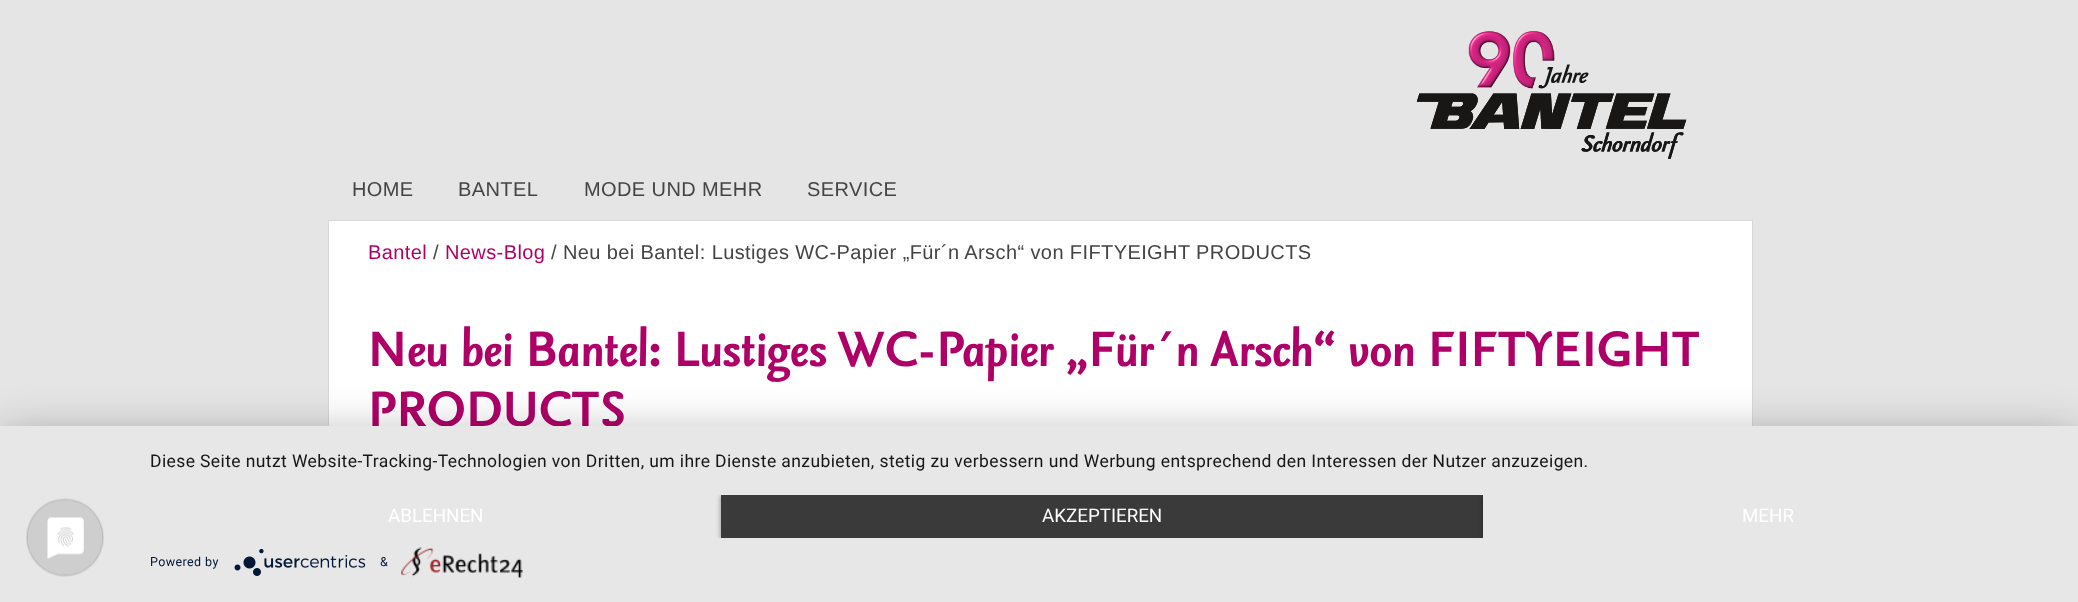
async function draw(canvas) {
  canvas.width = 2078
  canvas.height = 602
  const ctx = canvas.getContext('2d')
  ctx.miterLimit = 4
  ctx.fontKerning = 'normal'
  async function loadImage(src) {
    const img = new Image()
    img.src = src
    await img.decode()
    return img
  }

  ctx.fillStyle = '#e5e5e5'
  ctx.fillRect(0, 0, 2078, 602)
  ctx.drawImage(await loadImage('image0.png'), 1416, 31, 271, 128)
  ctx.letterSpacing = '0.4px'
  ctx.font = '20px Liberation Sans'
  ctx.fillStyle = '#444'
  ctx.fillText('HOME', 352, 196)
  ctx.fillText('BANTEL', 458, 196)
  ctx.fillText('MODE UND MEHR', 584, 196)
  ctx.fillText('SERVICE', 807, 196)
  ctx.fillStyle = '#fff'
  ctx.fillRect(329, 221, 1423, 205)
  ctx.strokeStyle = '#d8d8d8'
  ctx.strokeRect(328.5, 220.5, 1424, 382)
  ctx.fillStyle = '#af0068'
  ctx.fillText('Bantel', 368, 259)
  ctx.fillStyle = '#444'
  ctx.fillText('/', 433, 259)
  ctx.fillStyle = '#af0068'
  ctx.fillText('News-Blog', 445, 259)
  ctx.fillStyle = '#444'
  ctx.fillText('/ Neu bei Bantel: Lustiges WC-Papier „Für´n Arsch“ von FIFTYEIGHT PRODUCTS', 551, 259)
  ctx.font = 'bold 60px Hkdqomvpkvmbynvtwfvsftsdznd'
  ctx.fillStyle = '#af0068'
  ctx.fillText('Neu bei Bantel: Lustiges WC-Papier „Für´n Arsch“ von FIFTYEIGHT', 368, 366)
  ctx.fillText('PRODUCTS', 368, 426)
  ctx.fillStyle = '#0000004d'
  ctx.filter = 'blur(22.5px)'
  ctx.beginPath()
  ctx.rect(0, 434, 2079, 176)
  ctx.fill()
  ctx.filter = 'none'
  ctx.fillStyle = '#e7e7e7'
  ctx.fillRect(0, 426, 2078, 176)
  ctx.drawImage(await loadImage('image1.png'), 26, 498, 78, 79)
  ctx.font = '17.5px Roboto'
  ctx.fillStyle = '#161616'
  ctx.fillText('Diese Seite nutzt Website-Tracking-Technologien von Dritten, um ihre Dienste anzubieten, stetig zu verbessern und Werbung entsprechend den Interessen der Nutzer anzuzeigen.', 150, 467)
  ctx.letterSpacing = '0px'
  ctx.font = '18.75px Roboto'
  ctx.fillStyle = '#fff'
  ctx.fillText('ABLEHNEN', 388, 522)
  ctx.save()
  ctx.beginPath()
  ctx.rect(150, 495, 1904, 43)
  ctx.clip()
  ctx.fillStyle = '#00000066'
  ctx.filter = 'blur(2.5px)'
  ctx.beginPath()
  ctx.rect(721, 496, 762, 43)
  ctx.fill()
  ctx.filter = 'none'
  ctx.restore()
  ctx.fillStyle = '#3a3a3a'
  ctx.fillRect(721, 495, 762, 43)
  ctx.fillStyle = '#fff'
  ctx.fillText('AKZEPTIEREN', 1042, 522)
  ctx.save()
  ctx.beginPath()
  ctx.rect(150, 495, 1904, 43)
  ctx.clip()
  ctx.fillStyle = '#00000066'
  ctx.filter = 'blur(2.5px)'
  ctx.beginPath()
  ctx.rect(1483, 496, 571, 43)
  ctx.fill()
  ctx.filter = 'none'
  ctx.restore()
  ctx.fillStyle = '#e7e7e7'
  ctx.fillRect(1483, 495, 571, 43)
  ctx.fillStyle = '#fff'
  ctx.fillText('MEHR', 1742, 522)
  ctx.letterSpacing = '0.4px'
  ctx.font = '12.5px Roboto'
  ctx.fillStyle = '#021836'
  ctx.fillText('Powered by', 150, 566)
  ctx.drawImage(await loadImage('image2.png'), 234, 548, 132, 28)
  ctx.fillText('&', 380, 566)
  ctx.drawImage(await loadImage('image3.png'), 401, 547, 122, 31)
}

draw(document.querySelector('canvas'))
